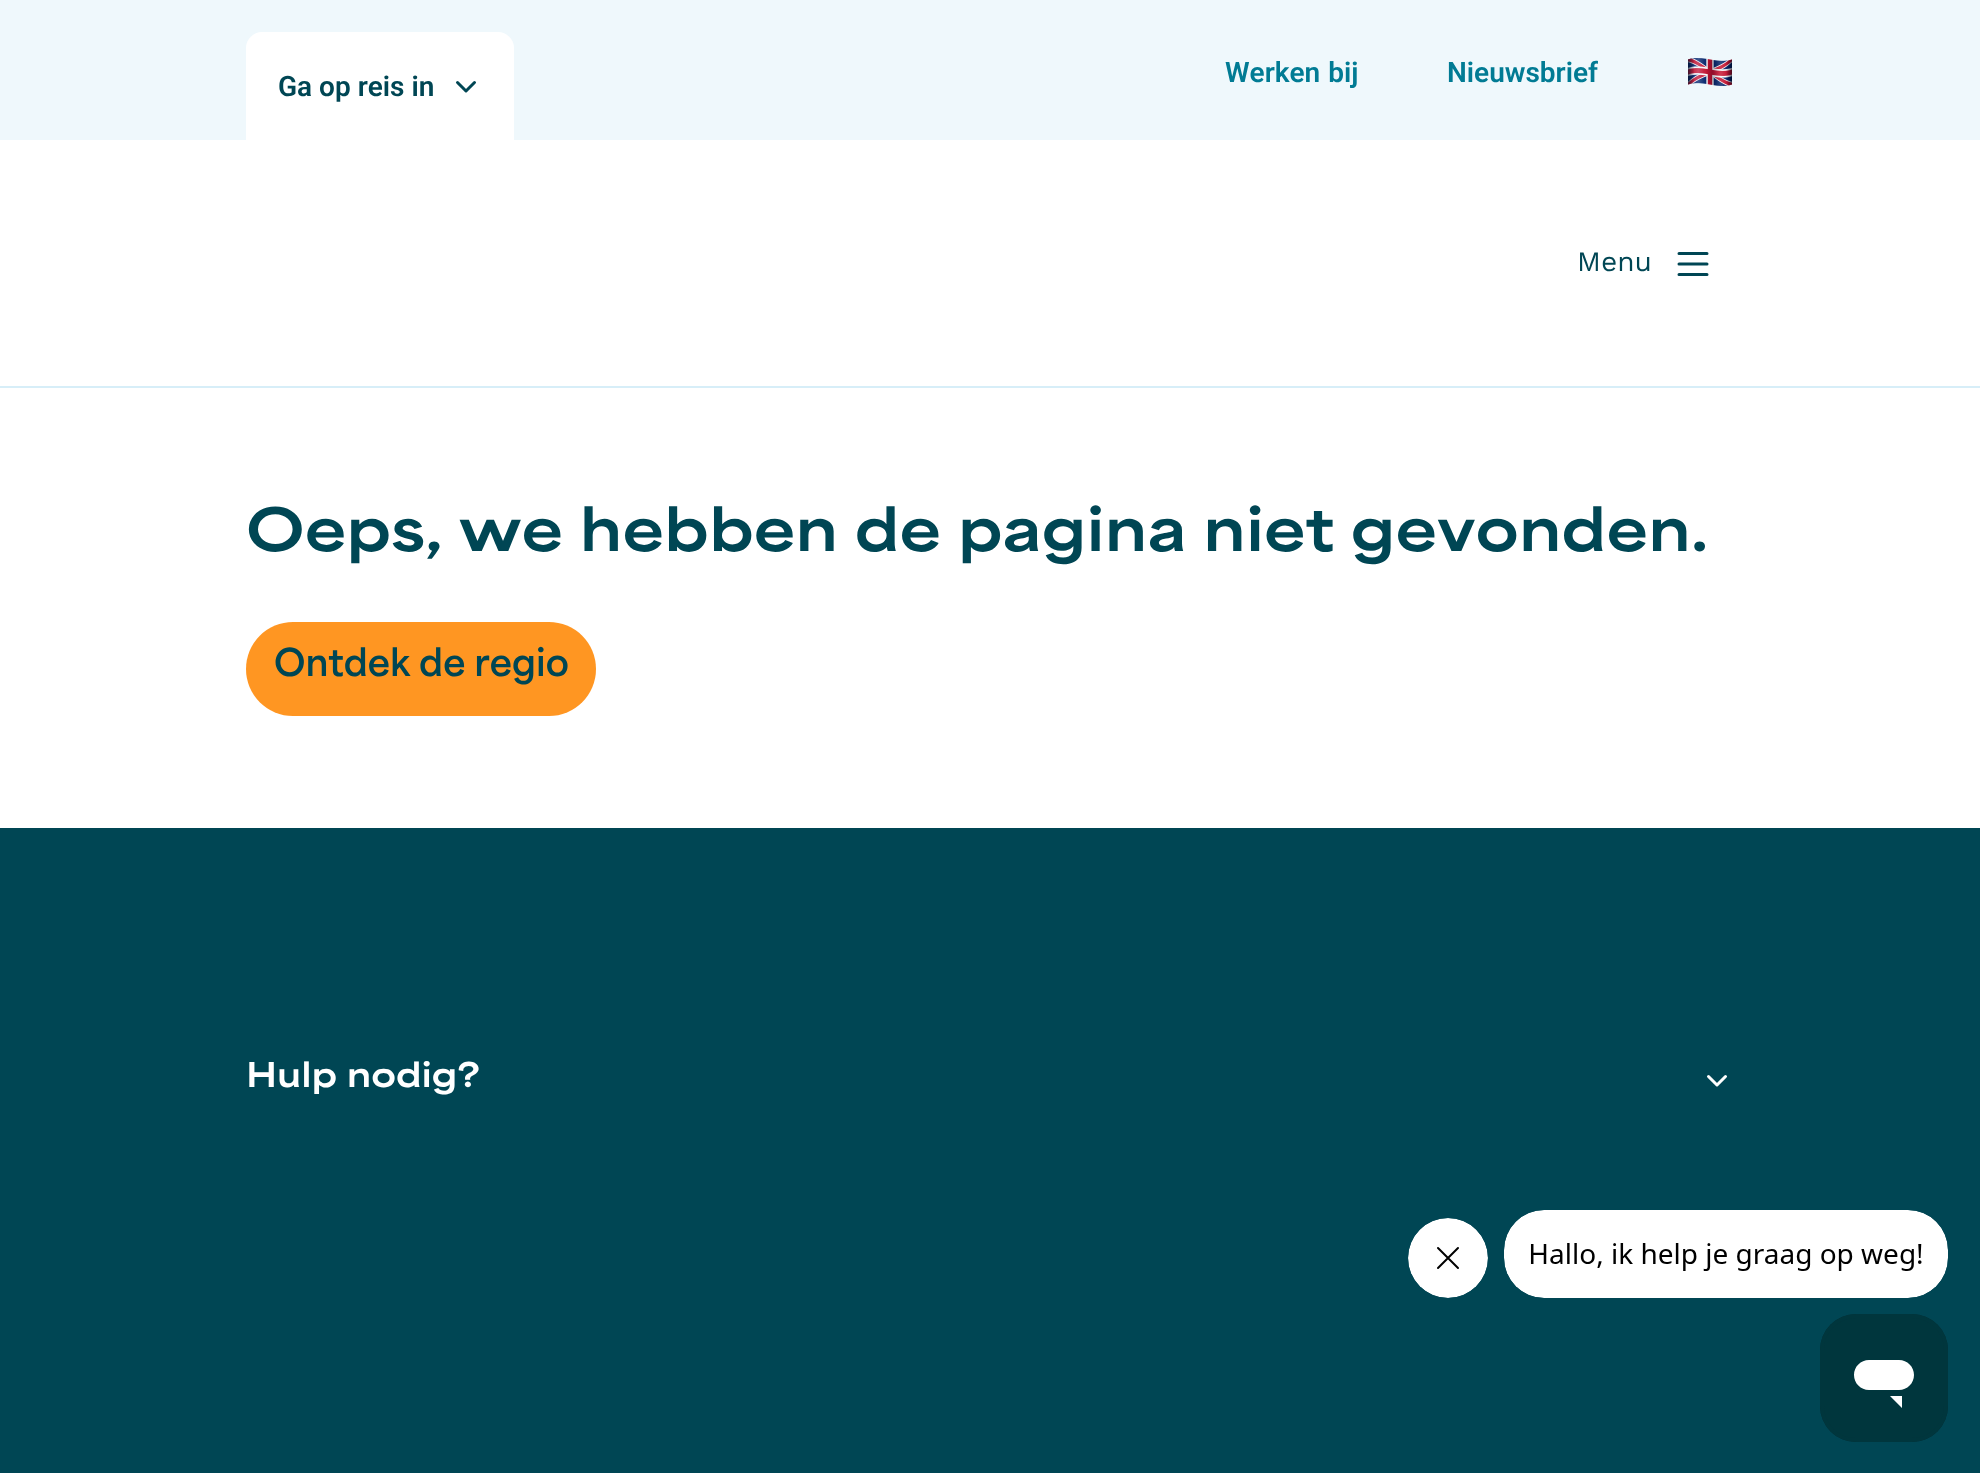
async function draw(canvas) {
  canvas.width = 1980
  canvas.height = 1473
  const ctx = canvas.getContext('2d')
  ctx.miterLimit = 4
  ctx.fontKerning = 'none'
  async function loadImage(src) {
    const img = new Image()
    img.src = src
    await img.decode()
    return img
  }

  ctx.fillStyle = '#fff'
  ctx.fillRect(0, 0, 1980, 1473)
  ctx.fillStyle = '#eff8fc'
  ctx.fillRect(0, 0, 1980, 140)
  ctx.fillStyle = '#fff'
  ctx.beginPath()
  ctx.roundRect(246, 32, 268, 108, [16, 16, 0, 0])
  ctx.fill()
  ctx.font = '600 28px Roboto'
  ctx.fillStyle = '#004654'
  ctx.fillText('Ga op reis in', 278, 96)
  ctx.beginPath()
  ctx.moveTo(474.5, 82.5)
  ctx.lineTo(466, 91)
  ctx.lineTo(457.5, 82.5)
  ctx.strokeStyle = '#004654'
  ctx.lineWidth = 3
  ctx.lineCap = 'round'
  ctx.lineJoin = 'round'
  ctx.stroke()
  ctx.wordSpacing = '1px'
  ctx.fillStyle = '#017b94'
  ctx.fillText('Werken bij', 1225, 82)
  ctx.wordSpacing = '0px'
  ctx.fillText('Nieuwsbrief', 1447, 82)
  ctx.drawImage(await loadImage('image0.png'), 1688, 58, 44, 28)
  ctx.fillStyle = '#d7eef8'
  ctx.fillRect(0, 386, 1980, 2)
  ctx.font = '28px Work Sans'
  ctx.fillStyle = '#004654'
  ctx.fillText('Menu', 1577, 271)
  ctx.beginPath()
  ctx.moveTo(1679, 253.5)
  ctx.lineTo(1707, 253.5)
  ctx.moveTo(1679, 264)
  ctx.lineTo(1707, 264)
  ctx.moveTo(1679, 274.5)
  ctx.lineTo(1707, 274.5)
  ctx.stroke()
  ctx.font = '800 56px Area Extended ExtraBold'
  ctx.fillText('Oeps, we hebben de pagina niet gevonden.', 246, 551)
  ctx.fillStyle = '#ff9622'
  ctx.beginPath()
  ctx.roundRect(246, 622, 350, 94, 47)
  ctx.fill()
  ctx.font = 'bold 36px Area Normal'
  ctx.fillStyle = '#004654'
  ctx.fillText('Ontdek de regio', 274, 676)
  ctx.fillRect(0, 828, 1980, 645)
  ctx.font = '800 32px Area Extended ExtraBold'
  ctx.fillStyle = '#fff'
  ctx.fillText('Hulp nodig?', 246, 1087)
  ctx.beginPath()
  ctx.moveTo(1725.5, 1076.5)
  ctx.lineTo(1717, 1085)
  ctx.lineTo(1708.5, 1076.5)
  ctx.strokeStyle = '#fff'
  ctx.stroke()
  ctx.drawImage(await loadImage('image1.png'), 1408, 1218, 80, 80)
  ctx.drawImage(await loadImage('image2.png'), 1504, 1210, 444, 88)
  ctx.drawImage(await loadImage('image3.png'), 1820, 1314, 128, 128)
}

draw(document.querySelector('canvas'))
